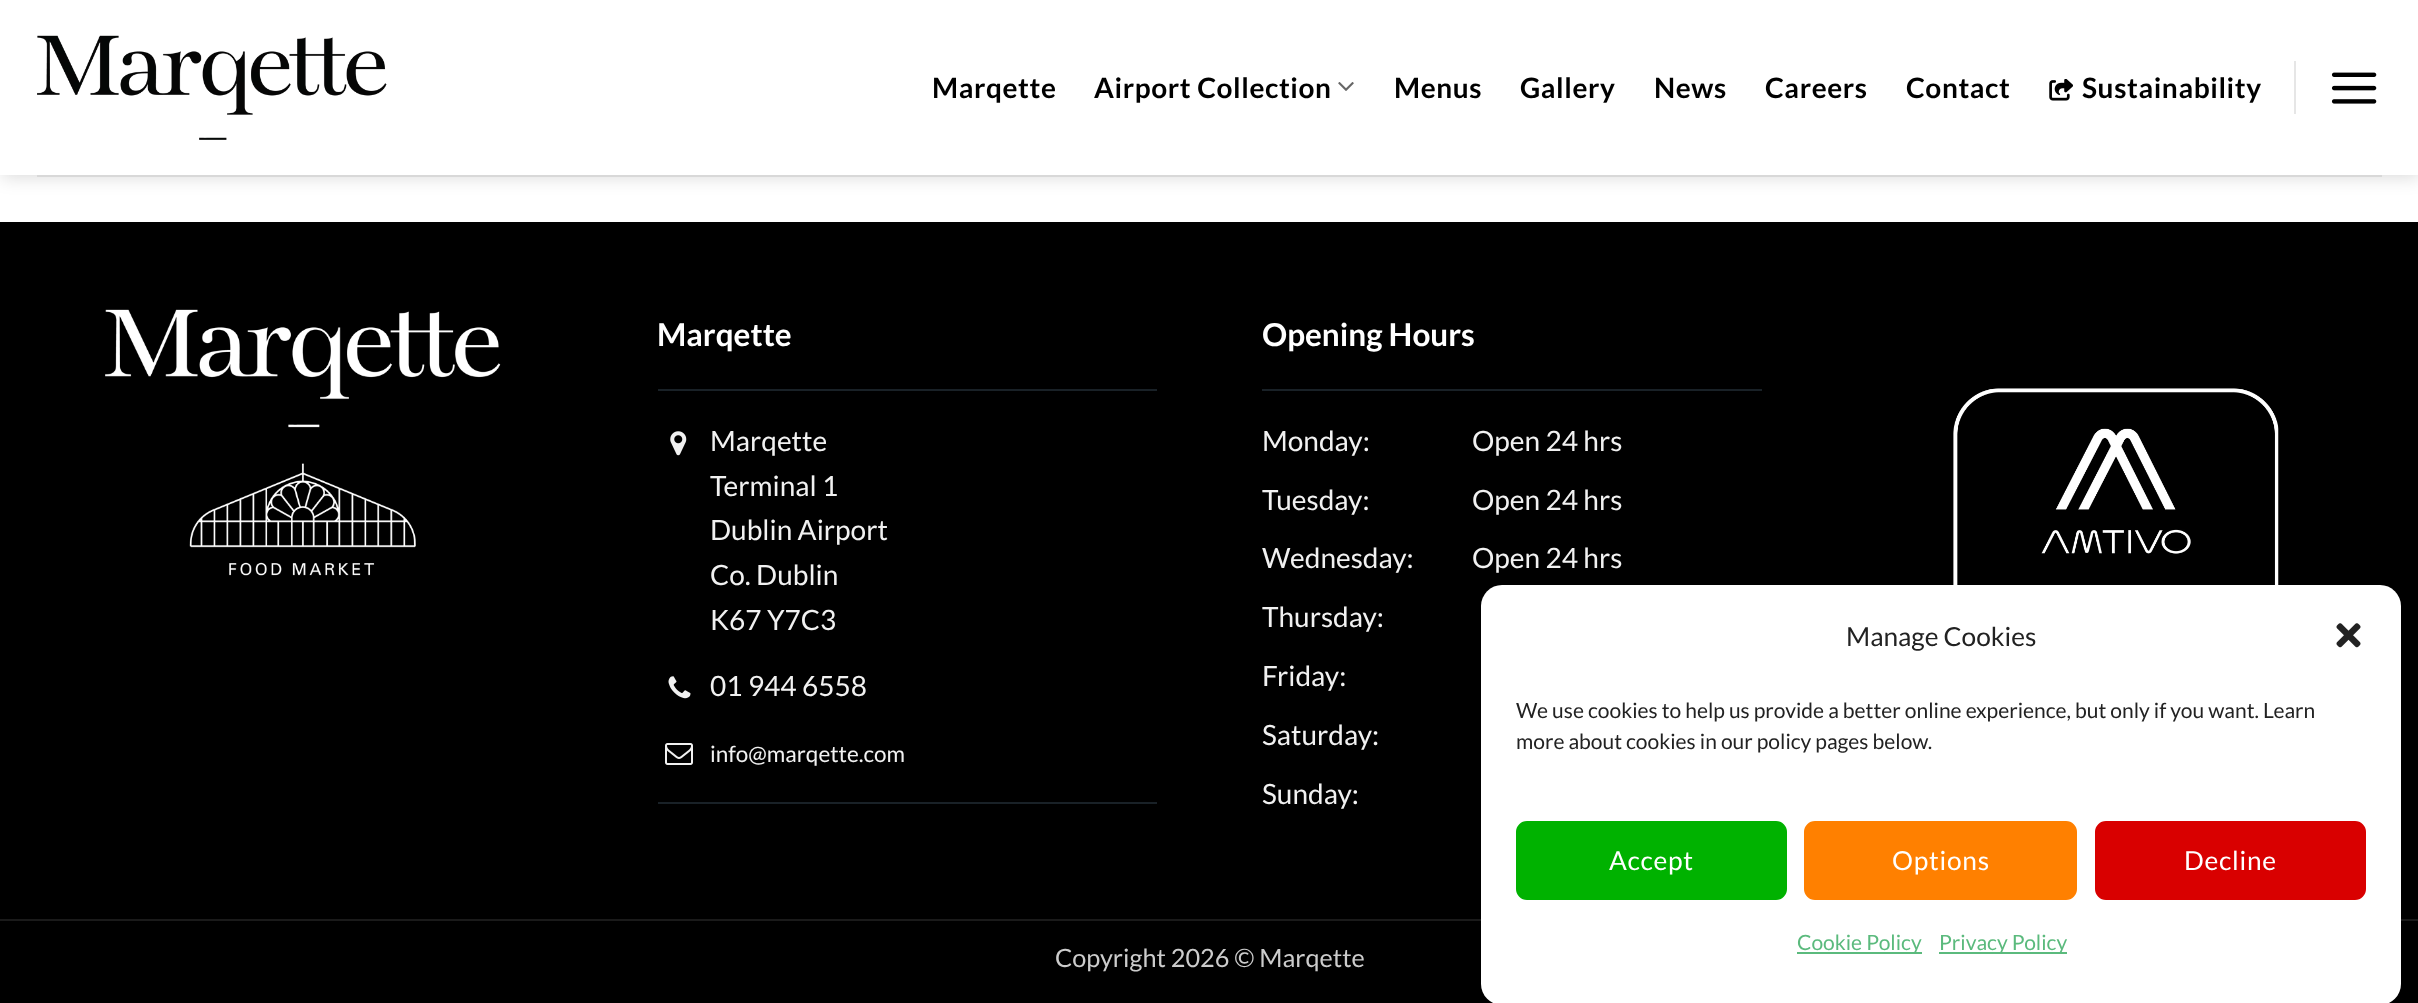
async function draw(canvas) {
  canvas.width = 2418
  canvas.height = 1003
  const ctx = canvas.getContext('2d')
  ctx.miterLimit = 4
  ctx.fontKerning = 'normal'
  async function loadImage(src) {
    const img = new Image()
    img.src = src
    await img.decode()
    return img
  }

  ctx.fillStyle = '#fff'
  ctx.fillRect(0, 0, 2418, 1003)
  ctx.fillStyle = '#00000026'
  ctx.filter = 'blur(9px)'
  ctx.beginPath()
  ctx.rect(2, 2, 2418, 175)
  ctx.fill()
  ctx.filter = 'none'
  ctx.fillStyle = '#fff'
  ctx.fillRect(0, 0, 2418, 175)
  ctx.drawImage(await loadImage('image0.png'), 37, 35, 350, 105)
  ctx.letterSpacing = '0.6px'
  ctx.font = 'bold 28px Lato'
  ctx.fillStyle = '#000'
  ctx.fillText('Marqette', 932, 98)
  ctx.fillText('Airport Collection', 1094, 98)
  ctx.drawImage(await loadImage('image1.png'), 1338, 82, 16, 9)
  ctx.fillText('Menus', 1394, 98)
  ctx.fillText('Gallery', 1520, 98)
  ctx.fillText('News', 1654, 98)
  ctx.fillText('Careers', 1765, 98)
  ctx.fillText('Contact', 1906, 98)
  ctx.drawImage(await loadImage('image2.png'), 2049, 79, 24, 22)
  ctx.fillText('Sustainability', 2082, 98)
  ctx.fillStyle = '#e6e6e6'
  ctx.fillRect(2294, 61, 2, 53)
  ctx.drawImage(await loadImage('image3.png'), 2331, 72, 46, 32)
  ctx.fillStyle = '#d8d8d8'
  ctx.fillRect(37, 175, 2345, 2)
  ctx.fillStyle = '#000'
  ctx.fillRect(0, 222, 2418, 697)
  ctx.drawImage(await loadImage('image4.png'), 105, 309, 396, 267)
  ctx.letterSpacing = '0px'
  ctx.font = 'bold 31.5px Lato'
  ctx.fillStyle = '#fff'
  ctx.fillText('Marqette', 657, 346)
  ctx.fillStyle = '#192127'
  ctx.fillRect(658, 389, 499, 2)
  ctx.drawImage(await loadImage('image5.png'), 670, 431, 17, 25)
  ctx.font = '28px Lato'
  ctx.fillStyle = '#f1f1f1'
  ctx.fillText('Marqette', 710, 451)
  ctx.fillText('Terminal 1', 710, 496)
  ctx.fillText('Dublin Airport', 710, 540)
  ctx.fillText('Co. Dublin', 710, 585)
  ctx.fillText('K67 Y7C3', 710, 630)
  ctx.drawImage(await loadImage('image6.png'), 668, 676, 23, 23)
  ctx.fillText('01 944 6558', 710, 696)
  ctx.drawImage(await loadImage('image7.png'), 665, 743, 28, 22)
  ctx.font = '22.5px Lato'
  ctx.fillText('info@marqette.com', 710, 762)
  ctx.fillStyle = '#192127'
  ctx.fillRect(658, 802, 499, 2)
  ctx.font = 'bold 31.5px Lato'
  ctx.fillStyle = '#fff'
  ctx.fillText('Opening Hours', 1262, 346)
  ctx.fillStyle = '#192127'
  ctx.fillRect(1262, 389, 500, 2)
  ctx.font = '28px Lato'
  ctx.fillStyle = '#f1f1f1'
  ctx.fillText('Monday:', 1262, 451)
  ctx.fillText('Open 24 hrs', 1472, 451)
  ctx.fillText('Tuesday:', 1262, 510)
  ctx.fillText('Open 24 hrs', 1472, 510)
  ctx.fillText('Wednesday:', 1262, 568)
  ctx.fillText('Open 24 hrs', 1472, 568)
  ctx.fillText('Thursday:', 1262, 627)
  ctx.fillText('Friday:', 1262, 686)
  ctx.fillText('Saturday:', 1262, 745)
  ctx.fillText('Sunday:', 1262, 804)
  ctx.drawImage(await loadImage('image8.png'), 1953, 388, 326, 197)
  ctx.fillStyle = '#000'
  ctx.fillRect(0, 921, 2418, 82)
  ctx.fillStyle = '#1a1a1a'
  ctx.fillRect(0, 919, 2418, 2)
  ctx.font = '25.25px Lato'
  ctx.fillStyle = '#ccc'
  ctx.fillText('Copyright 2026 © Marqette', 1055, 967)
  ctx.fillStyle = '#fff'
  ctx.beginPath()
  ctx.roundRect(1481, 585, 920, 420, 21)
  ctx.fill()
  ctx.font = '26.25px Lato'
  ctx.fillStyle = '#222'
  ctx.fillText('Manage Cookies', 1846, 646)
  ctx.drawImage(await loadImage('image9.png'), 2336, 623, 25, 25)
  ctx.font = '21px Lato'
  ctx.fillText('We use cookies to help us provide a better online experience, but only if you want. Learn', 1516, 718)
  ctx.fillText('more about cookies in our policy pages below.', 1516, 749)
  ctx.fillStyle = '#00b200'
  ctx.beginPath()
  ctx.roundRect(1517, 822, 269, 77, 10)
  ctx.fill()
  ctx.strokeStyle = '#00b200'
  ctx.lineWidth = 2
  ctx.stroke()
  ctx.letterSpacing = '0.75px'
  ctx.font = '26.25px Lato'
  ctx.fillStyle = '#fff'
  ctx.fillText('Accept', 1609, 870)
  ctx.fillStyle = '#ff8000'
  ctx.beginPath()
  ctx.roundRect(1805, 822, 271, 77, 10)
  ctx.fill()
  ctx.strokeStyle = '#ff8000'
  ctx.stroke()
  ctx.fillStyle = '#fff'
  ctx.fillText('Options', 1892, 870)
  ctx.fillStyle = '#d90000'
  ctx.beginPath()
  ctx.roundRect(2096, 822, 269, 77, 10)
  ctx.fill()
  ctx.strokeStyle = '#d90000'
  ctx.stroke()
  ctx.fillStyle = '#fff'
  ctx.fillText('Decline', 2184, 870)
  ctx.fillStyle = '#5bba7d'
  ctx.fillRect(1797, 952, 125, 2)
  ctx.letterSpacing = '0px'
  ctx.font = '21px Lato'
  ctx.fillText('Cookie Policy', 1797, 950)
  ctx.fillRect(1939, 952, 128, 2)
  ctx.fillText('Privacy Policy', 1939, 950)
}

draw(document.querySelector('canvas'))
